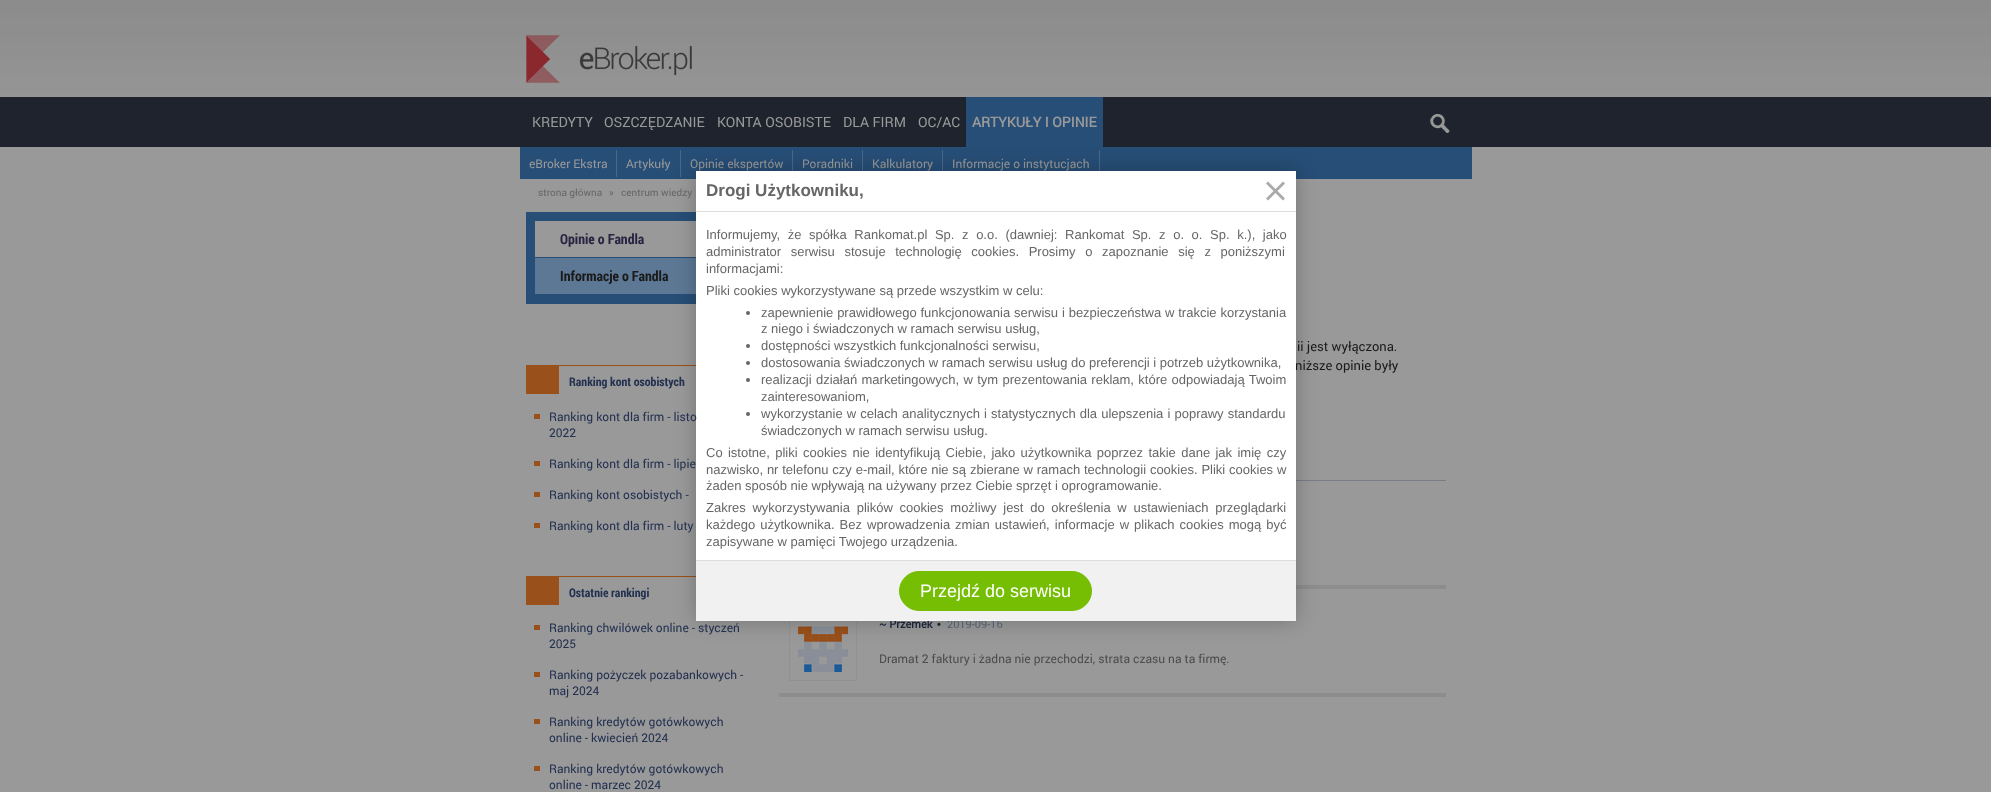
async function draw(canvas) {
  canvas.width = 1991
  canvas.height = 792
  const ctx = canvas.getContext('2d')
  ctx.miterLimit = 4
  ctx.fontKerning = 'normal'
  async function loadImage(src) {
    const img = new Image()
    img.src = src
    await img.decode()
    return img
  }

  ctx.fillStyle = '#999'
  ctx.fillRect(0, 0, 1991, 792)
  ctx.drawImage(await loadImage('image0.png'), 0, 0, 1991, 97)
  ctx.drawImage(await loadImage('image1.png'), 526, 35, 166, 48)
  ctx.fillStyle = '#1e232d'
  ctx.fillRect(0, 97, 1991, 50)
  ctx.fillStyle = '#274e77'
  ctx.fillRect(966, 97, 137, 50)
  ctx.font = 'bold 14px Roboto'
  ctx.fillStyle = '#999'
  ctx.fillText('ARTYKUŁY I OPINIE', 972, 127)
  ctx.fillStyle = '#274e77'
  ctx.fillRect(520, 147, 952, 32)
  ctx.fillStyle = '#496889'
  ctx.fillRect(616, 150, 1, 27)
  ctx.font = '12px Roboto'
  ctx.fillStyle = '#999'
  ctx.fillText('eBroker Ekstra', 529, 168)
  ctx.fillStyle = '#496889'
  ctx.fillRect(680, 150, 1, 27)
  ctx.fillStyle = '#999'
  ctx.fillText('Artykuły', 626, 168)
  ctx.fillStyle = '#496889'
  ctx.fillRect(792, 150, 1, 27)
  ctx.fillStyle = '#999'
  ctx.fillText('Opinie ekspertów', 690, 168)
  ctx.fillStyle = '#496889'
  ctx.fillRect(862, 150, 1, 27)
  ctx.fillStyle = '#999'
  ctx.fillText('Poradniki', 802, 168)
  ctx.fillStyle = '#496889'
  ctx.fillRect(942, 150, 1, 27)
  ctx.fillStyle = '#999'
  ctx.fillText('Kalkulatory', 872, 168)
  ctx.fillStyle = '#496889'
  ctx.fillRect(1099, 150, 1, 27)
  ctx.fillStyle = '#999'
  ctx.fillText('Informacje o instytucjach', 952, 168)
  ctx.drawImage(await loadImage('image2.png'), 1430, 113, 20, 20)
  ctx.font = '14px Roboto'
  ctx.fillText('KREDYTY', 532, 127)
  ctx.fillText('OSZCZĘDZANIE', 604, 127)
  ctx.fillText('KONTA OSOBISTE', 717, 127)
  ctx.fillText('DLA FIRM', 843, 127)
  ctx.fillText('OC/AC', 918, 127)
  ctx.fillStyle = '#274e77'
  ctx.fillRect(526, 212, 170, 92)
  ctx.fillStyle = '#999'
  ctx.fillRect(535, 221, 161, 36)
  ctx.fillStyle = '#5d7895'
  ctx.fillRect(535, 258, 161, 36)
  ctx.fillStyle = '#99501a'
  ctx.fillRect(526, 365, 170, 1)
  ctx.fillRect(526, 576, 170, 1)
  ctx.fillStyle = '#787d87'
  ctx.fillRect(1296, 480, 150, 1)
  ctx.fillStyle = '#8d8d8d'
  ctx.fillRect(1296, 585, 150, 4)
  ctx.strokeStyle = '#919191'
  ctx.strokeRect(789.5, 613.5, 67, 67)
  ctx.drawImage(await loadImage('image3.png'), 798, 626, 50, 46)
  ctx.fillStyle = '#00000040'
  ctx.filter = 'blur(10px)'
  ctx.beginPath()
  ctx.rect(696, 171, 600, 450)
  ctx.fill()
  ctx.filter = 'none'
  ctx.font = '13px Roboto'
  ctx.fillStyle = '#1a1a1a'
  ctx.fillText('niższe opinie były', 1295, 370)
  ctx.fillStyle = '#fff'
  ctx.fillRect(696, 171, 600, 389)
  ctx.font = 'bold 17px Liberation Sans'
  ctx.fillStyle = '#666'
  ctx.fillText('Drogi Użytkowniku,', 706, 196)
  ctx.fillStyle = '#aaa'
  ctx.beginPath()
  ctx.moveTo(1268, 181.5)
  ctx.lineTo(1285, 198.5)
  ctx.lineTo(1283, 200.5)
  ctx.lineTo(1266, 183.5)
  ctx.closePath()
  ctx.fill()
  ctx.beginPath()
  ctx.moveTo(1266, 198.5)
  ctx.lineTo(1283, 181.5)
  ctx.lineTo(1285, 183.5)
  ctx.lineTo(1268, 200.5)
  ctx.closePath()
  ctx.fill()
  ctx.fillStyle = '#ddd'
  ctx.fillRect(696, 211, 600, 1)
  ctx.fillRect(696, 560, 600, 1)
  ctx.wordSpacing = '4px'
  ctx.font = '13px Liberation Sans'
  ctx.fillStyle = '#666'
  ctx.fillText('Informujemy, że spółka Rankomat.pl Sp. z o.o. (dawniej: Rankomat Sp. z o. o. Sp. k.), jako', 706, 239)
  ctx.wordSpacing = '6px'
  ctx.fillText('administrator serwisu stosuje technologię cookies. Prosimy o zapoznanie się z poniższymi', 706, 256)
  ctx.wordSpacing = '0px'
  ctx.fillText('informacjami:', 706, 273)
  ctx.fillText('Pliki cookies wykorzystywane są przede wszystkim w celu:', 706, 295)
  ctx.beginPath()
  ctx.arc(748, 313, 2, 0, 2 * Math.PI)
  ctx.fill()
  ctx.wordSpacing = '0.25px'
  ctx.fillText('zapewnienie prawidłowego funkcjonowania serwisu i bezpieczeństwa w trakcie korzystania', 761, 317)
  ctx.wordSpacing = '0px'
  ctx.fillText('z niego i świadczonych w ramach serwisu usług,', 761, 333)
  ctx.beginPath()
  ctx.arc(748, 346, 2, 0, 2 * Math.PI)
  ctx.fill()
  ctx.fillText('dostępności wszystkich funkcjonalności serwisu,', 761, 350)
  ctx.beginPath()
  ctx.arc(748, 363, 2, 0, 2 * Math.PI)
  ctx.fill()
  ctx.fillText('dostosowania świadczonych w ramach serwisu usług do preferencji i potrzeb użytkownika,', 761, 367)
  ctx.beginPath()
  ctx.arc(748, 380, 2, 0, 2 * Math.PI)
  ctx.fill()
  ctx.wordSpacing = '0.75px'
  ctx.fillText('realizacji działań marketingowych, w tym prezentowania reklam, które odpowiadają Twoim', 761, 384)
  ctx.wordSpacing = '0px'
  ctx.fillText('zainteresowaniom,', 761, 401)
  ctx.beginPath()
  ctx.arc(748, 414, 2, 0, 2 * Math.PI)
  ctx.fill()
  ctx.wordSpacing = '0.5px'
  ctx.fillText('wykorzystanie w celach analitycznych i statystycznych dla ulepszenia i poprawy standardu', 761, 418)
  ctx.wordSpacing = '0px'
  ctx.fillText('świadczonych w ramach serwisu usług.', 761, 435)
  ctx.wordSpacing = '1.75px'
  ctx.fillText('Co istotne, pliki cookies nie identyfikują Ciebie, jako użytkownika poprzez takie dane jak imię czy', 706, 457)
  ctx.wordSpacing = '0.2px'
  ctx.fillText('nazwisko, nr telefonu czy e-mail, które nie są zbierane w ramach technologii cookies. Pliki cookies w', 706, 474)
  ctx.wordSpacing = '0px'
  ctx.fillText('żaden sposób nie wpływają na używany przez Ciebie sprzęt i oprogramowanie.', 706, 490)
  ctx.wordSpacing = '3.1px'
  ctx.fillText('Zakres wykorzystywania plików cookies możliwy jest do określenia w ustawieniach przeglądarki', 706, 512)
  ctx.wordSpacing = '1.4px'
  ctx.fillText('każdego użytkownika. Bez wprowadzenia zmian ustawień, informacje w plikach cookies mogą być', 706, 529)
  ctx.wordSpacing = '0px'
  ctx.fillText('zapisywane w pamięci Twojego urządzenia.', 706, 546)
  ctx.font = 'bold 11px Roboto'
  ctx.fillStyle = '#1a2337'
  ctx.fillText('~ Przemek', 879, 628)
  ctx.font = '11px Roboto'
  ctx.fillStyle = '#535c6e'
  ctx.fillText('2019-09-16', 947, 628)
  ctx.fillStyle = '#f1f1f1'
  ctx.fillRect(696, 561, 600, 60)
  ctx.fillStyle = '#76be04'
  ctx.beginPath()
  ctx.roundRect(899.5, 571.5, 192, 39, 19.5)
  ctx.fill()
  ctx.strokeStyle = '#76be04'
  ctx.stroke()
  ctx.font = '18px Liberation Sans'
  ctx.fillStyle = '#fff'
  ctx.fillText('Przejdź do serwisu', 920, 597)
  ctx.font = '10px Roboto'
  ctx.fillStyle = '#666'
  ctx.fillText('strona główna', 538, 196)
  ctx.fillText('»', 609, 196)
  ctx.fillText('centrum wiedzy', 621, 196)
  ctx.font = 'bold 14px Roboto Condensed'
  ctx.fillStyle = '#282442'
  ctx.fillText('Opinie o Fandla', 560, 244)
  ctx.fillStyle = '#1a1a1a'
  ctx.fillText('Informacje o Fandla', 560, 281)
  ctx.fillStyle = '#99501a'
  ctx.fillRect(526, 366, 33, 28)
  ctx.font = 'bold 12px Roboto Condensed'
  ctx.fillStyle = '#233150'
  ctx.fillText('Ranking kont osobistych', 569, 386)
  ctx.fillStyle = '#99501a'
  ctx.fillRect(534, 414, 6, 5)
  ctx.font = '12px Roboto'
  ctx.fillStyle = '#233150'
  ctx.fillText('Ranking kont dla firm - listo', 549, 421)
  ctx.fillText('2022', 549, 437)
  ctx.fillStyle = '#99501a'
  ctx.fillRect(534, 461, 6, 5)
  ctx.fillStyle = '#233150'
  ctx.fillText('Ranking kont dla firm - lipie', 549, 468)
  ctx.fillStyle = '#99501a'
  ctx.fillRect(534, 492, 6, 5)
  ctx.fillStyle = '#233150'
  ctx.fillText('Ranking kont osobistych -', 549, 499)
  ctx.fillStyle = '#99501a'
  ctx.fillRect(534, 523, 6, 5)
  ctx.fillStyle = '#233150'
  ctx.fillText('Ranking kont dla firm - luty', 549, 530)
  ctx.fillStyle = '#99501a'
  ctx.fillRect(526, 577, 33, 28)
  ctx.font = 'bold 12px Roboto Condensed'
  ctx.fillStyle = '#233150'
  ctx.fillText('Ostatnie rankingi', 569, 597)
  ctx.fillStyle = '#99501a'
  ctx.fillRect(534, 625, 6, 5)
  ctx.font = '12px Roboto'
  ctx.fillStyle = '#233150'
  ctx.fillText('Ranking chwilówek online - styczeń', 549, 632)
  ctx.fillText('2025', 549, 648)
  ctx.fillStyle = '#99501a'
  ctx.fillRect(534, 672, 6, 5)
  ctx.fillStyle = '#233150'
  ctx.fillText('Ranking pożyczek pozabankowych -', 549, 679)
  ctx.fillText('maj 2024', 549, 695)
  ctx.fillStyle = '#99501a'
  ctx.fillRect(534, 719, 6, 5)
  ctx.fillStyle = '#233150'
  ctx.fillText('Ranking kredytów gotówkowych', 549, 726)
  ctx.fillText('online - kwiecień 2024', 549, 742)
  ctx.fillStyle = '#99501a'
  ctx.fillRect(534, 766, 6, 5)
  ctx.fillStyle = '#233150'
  ctx.fillText('Ranking kredytów gotówkowych', 549, 773)
  ctx.fillText('online - marzec 2024', 549, 789)
  ctx.font = '13px Roboto'
  ctx.fillStyle = '#1a1a1a'
  ctx.fillText('ii jest wyłączona.', 1297, 351)
  ctx.fillStyle = '#8d8d8d'
  ctx.fillRect(779, 693, 667, 4)
  ctx.font = 'bold 11px Liberation Sans'
  ctx.fillStyle = '#1a2337'
  ctx.fillText('•', 937, 628)
  ctx.font = '12px Roboto'
  ctx.fillStyle = '#4d4d4d'
  ctx.fillText('Dramat 2 faktury i żadna nie przechodzi, strata czasu na ta firmę.', 879, 663)
}

draw(document.querySelector('canvas'))
